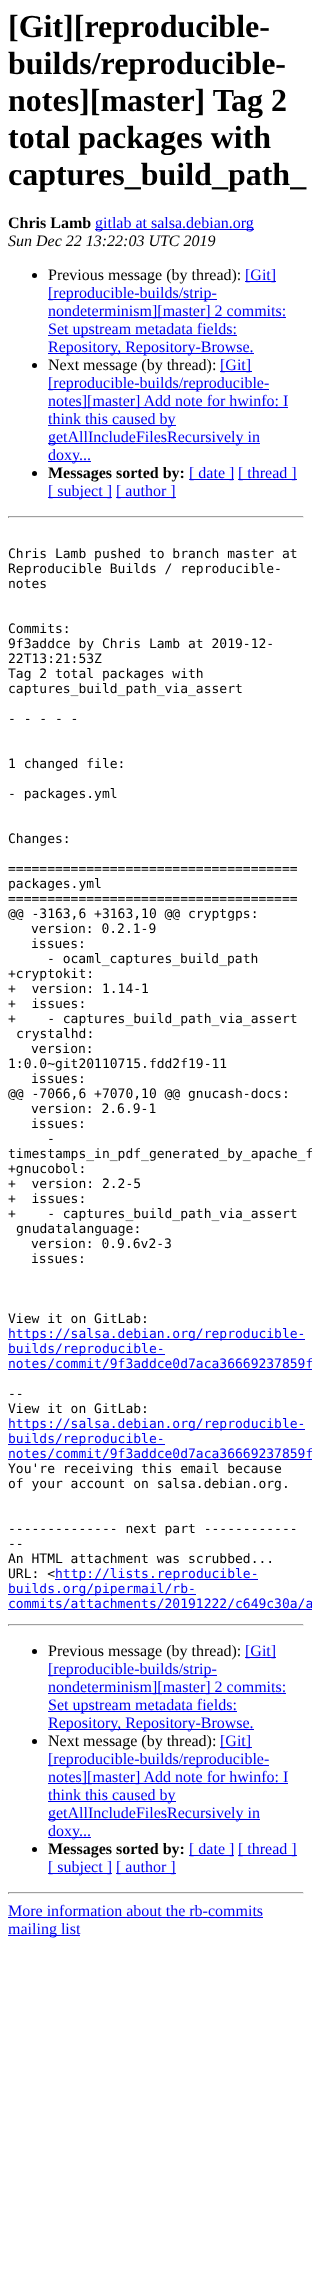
async function draw(canvas) {
  canvas.width = 312
  canvas.height = 2296
  const ctx = canvas.getContext('2d')
  ctx.miterLimit = 4
  ctx.fontKerning = 'normal'

  ctx.fillStyle = '#fff'
  ctx.fillRect(0, 0, 312, 2296)
  ctx.font = 'bold 32px Liberation Serif'
  ctx.fillStyle = '#000'
  ctx.fillText('[Git][reproducible-', 8, 37)
  ctx.fillText('builds/reproducible-', 8, 74)
  ctx.fillText('notes][master] Tag 2', 8, 111)
  ctx.fillText('total packages with', 8, 148)
  ctx.fillText('captures_build_path_', 8, 185)
  ctx.font = 'bold 16px Liberation Serif'
  ctx.fillText('Chris Lamb', 8, 228)
  ctx.fillStyle = '#00e'
  ctx.fillRect(95, 229, 159, 1)
  ctx.font = '16px Liberation Serif'
  ctx.fillText('gitlab at salsa.debian.org', 95, 228)
  ctx.font = 'italic 16px Liberation Serif'
  ctx.fillStyle = '#000'
  ctx.fillText('Sun Dec 22 13:22:03 UTC 2019', 8, 246)
  ctx.beginPath()
  ctx.arc(34.5, 275.5, 2.5, 0, 2 * Math.PI)
  ctx.fill()
  ctx.font = '16px Liberation Serif'
  ctx.fillText('Previous message (by thread):', 48, 280)
  ctx.fillStyle = '#00e'
  ctx.fillRect(245, 281, 31, 1)
  ctx.fillText('[Git]', 245, 280)
  ctx.fillRect(48, 299, 169, 1)
  ctx.fillText('[reproducible-builds/strip-', 48, 298)
  ctx.fillRect(48, 317, 238, 1)
  ctx.fillText('nondeterminism][master] 2 commits:', 48, 316)
  ctx.fillRect(48, 335, 189, 1)
  ctx.fillText('Set upstream metadata fields:', 48, 334)
  ctx.fillRect(48, 353, 206, 1)
  ctx.fillText('Repository, Repository-Browse.', 48, 352)
  ctx.fillStyle = '#000'
  ctx.beginPath()
  ctx.arc(34.5, 365.5, 2.5, 0, 2 * Math.PI)
  ctx.fill()
  ctx.fillText('Next message (by thread):', 48, 370)
  ctx.fillStyle = '#00e'
  ctx.fillRect(220, 371, 32, 1)
  ctx.fillText('[Git]', 220, 370)
  ctx.fillRect(48, 389, 221, 1)
  ctx.fillText('[reproducible-builds/reproducible-', 48, 388)
  ctx.fillRect(48, 407, 240, 1)
  ctx.fillText('notes][master] Add note for hwinfo: I', 48, 406)
  ctx.fillRect(48, 425, 128, 1)
  ctx.fillText('think this caused by', 48, 424)
  ctx.fillRect(48, 443, 212, 1)
  ctx.fillText('getAllIncludeFilesRecursively in', 48, 442)
  ctx.fillRect(48, 461, 43, 1)
  ctx.fillText('doxy...', 48, 460)
  ctx.fillStyle = '#000'
  ctx.beginPath()
  ctx.arc(34.5, 473.5, 2.5, 0, 2 * Math.PI)
  ctx.fill()
  ctx.font = 'bold 16px Liberation Serif'
  ctx.fillText('Messages sorted by:', 48, 478)
  ctx.fillStyle = '#00e'
  ctx.fillRect(189, 479, 45, 1)
  ctx.font = '16px Liberation Serif'
  ctx.fillText('[ date ]', 189, 478)
  ctx.fillRect(238, 479, 59, 1)
  ctx.fillText('[ thread ]', 238, 478)
  ctx.fillRect(48, 497, 64, 1)
  ctx.fillText('[ subject ]', 48, 496)
  ctx.fillRect(116, 497, 60, 1)
  ctx.fillText('[ author ]', 116, 496)
  ctx.fillStyle = '#9f9f9f'
  ctx.fillRect(8, 516, 296, 1)
  ctx.fillStyle = '#eee'
  ctx.fillRect(303, 516, 1, 2)
  ctx.fillRect(8, 517, 296, 1)
  ctx.fillStyle = '#9f9f9f'
  ctx.fillRect(8, 516, 1, 2)
  ctx.font = '13px DejaVu Sans Mono'
  ctx.fillStyle = '#000'
  ctx.fillText('Chris Lamb pushed to branch master at', 8, 558)
  ctx.fillText('Reproducible Builds / reproducible-', 8, 573)
  ctx.fillText('notes', 8, 588)
  ctx.fillText('Commits:', 8, 633)
  ctx.fillText('9f3addce by Chris Lamb at 2019-12-', 8, 648)
  ctx.fillText('22T13:21:53Z', 8, 663)
  ctx.fillText('Tag 2 total packages with', 8, 678)
  ctx.fillText('captures_build_path_via_assert', 8, 693)
  ctx.fillText('- - - - -', 8, 723)
  ctx.fillText('1 changed file:', 8, 768)
  ctx.fillText('- packages.yml', 8, 798)
  ctx.fillText('Changes:', 8, 843)
  ctx.fillText('=====================================', 8, 873)
  ctx.fillText('packages.yml', 8, 888)
  ctx.fillText('=====================================', 8, 903)
  ctx.fillText('@@ -3163,6 +3163,10 @@ cryptgps:', 8, 918)
  ctx.fillText('version: 0.2.1-9', 31, 933)
  ctx.fillText('issues:', 31, 948)
  ctx.fillText('- ocaml_captures_build_path', 47, 963)
  ctx.fillText('+cryptokit:', 8, 978)
  ctx.fillText('+  version: 1.14-1', 8, 993)
  ctx.fillText('+  issues:', 8, 1008)
  ctx.fillText('+    - captures_build_path_via_assert', 8, 1023)
  ctx.fillText('crystalhd:', 16, 1038)
  ctx.fillText('version:', 31, 1053)
  ctx.fillText('1:0.0~git20110715.fdd2f19-11', 8, 1068)
  ctx.fillText('issues:', 31, 1083)
  ctx.fillText('@@ -7066,6 +7070,10 @@ gnucash-docs:', 8, 1098)
  ctx.fillText('version: 2.6.9-1', 31, 1113)
  ctx.fillText('issues:', 31, 1128)
  ctx.fillText('-', 47, 1143)
  ctx.fillText('timestamps_in_pdf_generated_by_apache_f', 8, 1158)
  ctx.fillText('+gnucobol:', 8, 1173)
  ctx.fillText('+  version: 2.2-5', 8, 1188)
  ctx.fillText('+  issues:', 8, 1203)
  ctx.fillText('+    - captures_build_path_via_assert', 8, 1218)
  ctx.fillText('gnudatalanguage:', 16, 1233)
  ctx.fillText('version: 0.9.6v2-3', 31, 1248)
  ctx.fillText('issues:', 31, 1263)
  ctx.fillText('View it on GitLab:', 8, 1323)
  ctx.fillStyle = '#00e'
  ctx.fillRect(8, 1339, 297, 1)
  ctx.fillText('https://salsa.debian.org/reproducible-', 8, 1338)
  ctx.fillRect(8, 1354, 157, 1)
  ctx.fillText('builds/reproducible-', 8, 1353)
  ctx.fillRect(8, 1369, 304, 1)
  ctx.fillText('notes/commit/9f3addce0d7aca36669237859f', 8, 1368)
  ctx.fillStyle = '#000'
  ctx.fillText('--', 8, 1398)
  ctx.fillText('View it on GitLab:', 8, 1413)
  ctx.fillStyle = '#00e'
  ctx.fillRect(8, 1429, 297, 1)
  ctx.fillText('https://salsa.debian.org/reproducible-', 8, 1428)
  ctx.fillRect(8, 1444, 157, 1)
  ctx.fillText('builds/reproducible-', 8, 1443)
  ctx.fillRect(8, 1459, 304, 1)
  ctx.fillText('notes/commit/9f3addce0d7aca36669237859f', 8, 1458)
  ctx.fillStyle = '#000'
  ctx.fillText('You\'re receiving this email because', 8, 1473)
  ctx.fillText('of your account on salsa.debian.org.', 8, 1488)
  ctx.fillText('-------------- next part ------------', 8, 1533)
  ctx.fillText('--', 8, 1548)
  ctx.fillText('An HTML attachment was scrubbed...', 8, 1563)
  ctx.fillText('URL: <', 8, 1578)
  ctx.fillStyle = '#00e'
  ctx.fillRect(55, 1579, 203, 1)
  ctx.fillText('http://lists.reproducible-', 55, 1578)
  ctx.fillRect(8, 1594, 188, 1)
  ctx.fillText('builds.org/pipermail/rb-', 8, 1593)
  ctx.fillRect(8, 1609, 304, 1)
  ctx.fillText('commits/attachments/20191222/c649c30a/a', 8, 1608)
  ctx.fillStyle = '#9f9f9f'
  ctx.fillRect(8, 1624, 296, 1)
  ctx.fillStyle = '#eee'
  ctx.fillRect(303, 1624, 1, 2)
  ctx.fillRect(8, 1625, 296, 1)
  ctx.fillStyle = '#9f9f9f'
  ctx.fillRect(8, 1624, 1, 2)
  ctx.fillStyle = '#000'
  ctx.beginPath()
  ctx.arc(34.5, 1651.5, 2.5, 0, 2 * Math.PI)
  ctx.fill()
  ctx.font = '16px Liberation Serif'
  ctx.fillText('Previous message (by thread):', 48, 1656)
  ctx.fillStyle = '#00e'
  ctx.fillRect(245, 1657, 31, 1)
  ctx.fillText('[Git]', 245, 1656)
  ctx.fillRect(48, 1675, 169, 1)
  ctx.fillText('[reproducible-builds/strip-', 48, 1674)
  ctx.fillRect(48, 1693, 238, 1)
  ctx.fillText('nondeterminism][master] 2 commits:', 48, 1692)
  ctx.fillRect(48, 1711, 189, 1)
  ctx.fillText('Set upstream metadata fields:', 48, 1710)
  ctx.fillRect(48, 1729, 206, 1)
  ctx.fillText('Repository, Repository-Browse.', 48, 1728)
  ctx.fillStyle = '#000'
  ctx.beginPath()
  ctx.arc(34.5, 1741.5, 2.5, 0, 2 * Math.PI)
  ctx.fill()
  ctx.fillText('Next message (by thread):', 48, 1746)
  ctx.fillStyle = '#00e'
  ctx.fillRect(220, 1747, 32, 1)
  ctx.fillText('[Git]', 220, 1746)
  ctx.fillRect(48, 1765, 221, 1)
  ctx.fillText('[reproducible-builds/reproducible-', 48, 1764)
  ctx.fillRect(48, 1783, 240, 1)
  ctx.fillText('notes][master] Add note for hwinfo: I', 48, 1782)
  ctx.fillRect(48, 1801, 128, 1)
  ctx.fillText('think this caused by', 48, 1800)
  ctx.fillRect(48, 1819, 212, 1)
  ctx.fillText('getAllIncludeFilesRecursively in', 48, 1818)
  ctx.fillRect(48, 1837, 43, 1)
  ctx.fillText('doxy...', 48, 1836)
  ctx.fillStyle = '#000'
  ctx.beginPath()
  ctx.arc(34.5, 1849.5, 2.5, 0, 2 * Math.PI)
  ctx.fill()
  ctx.font = 'bold 16px Liberation Serif'
  ctx.fillText('Messages sorted by:', 48, 1854)
  ctx.fillStyle = '#00e'
  ctx.fillRect(189, 1855, 45, 1)
  ctx.font = '16px Liberation Serif'
  ctx.fillText('[ date ]', 189, 1854)
  ctx.fillRect(238, 1855, 59, 1)
  ctx.fillText('[ thread ]', 238, 1854)
  ctx.fillRect(48, 1873, 64, 1)
  ctx.fillText('[ subject ]', 48, 1872)
  ctx.fillRect(116, 1873, 60, 1)
  ctx.fillText('[ author ]', 116, 1872)
  ctx.fillStyle = '#9f9f9f'
  ctx.fillRect(8, 1892, 296, 1)
  ctx.fillStyle = '#eee'
  ctx.fillRect(303, 1892, 1, 2)
  ctx.fillRect(8, 1893, 296, 1)
  ctx.fillStyle = '#9f9f9f'
  ctx.fillRect(8, 1892, 1, 2)
  ctx.fillStyle = '#00e'
  ctx.fillText('More information about the rb-commits', 8, 1916)
  ctx.fillRect(8, 1917, 255, 1)
  ctx.fillRect(8, 1935, 72, 1)
  ctx.fillText('mailing list', 8, 1934)
}

draw(document.querySelector('canvas'))
